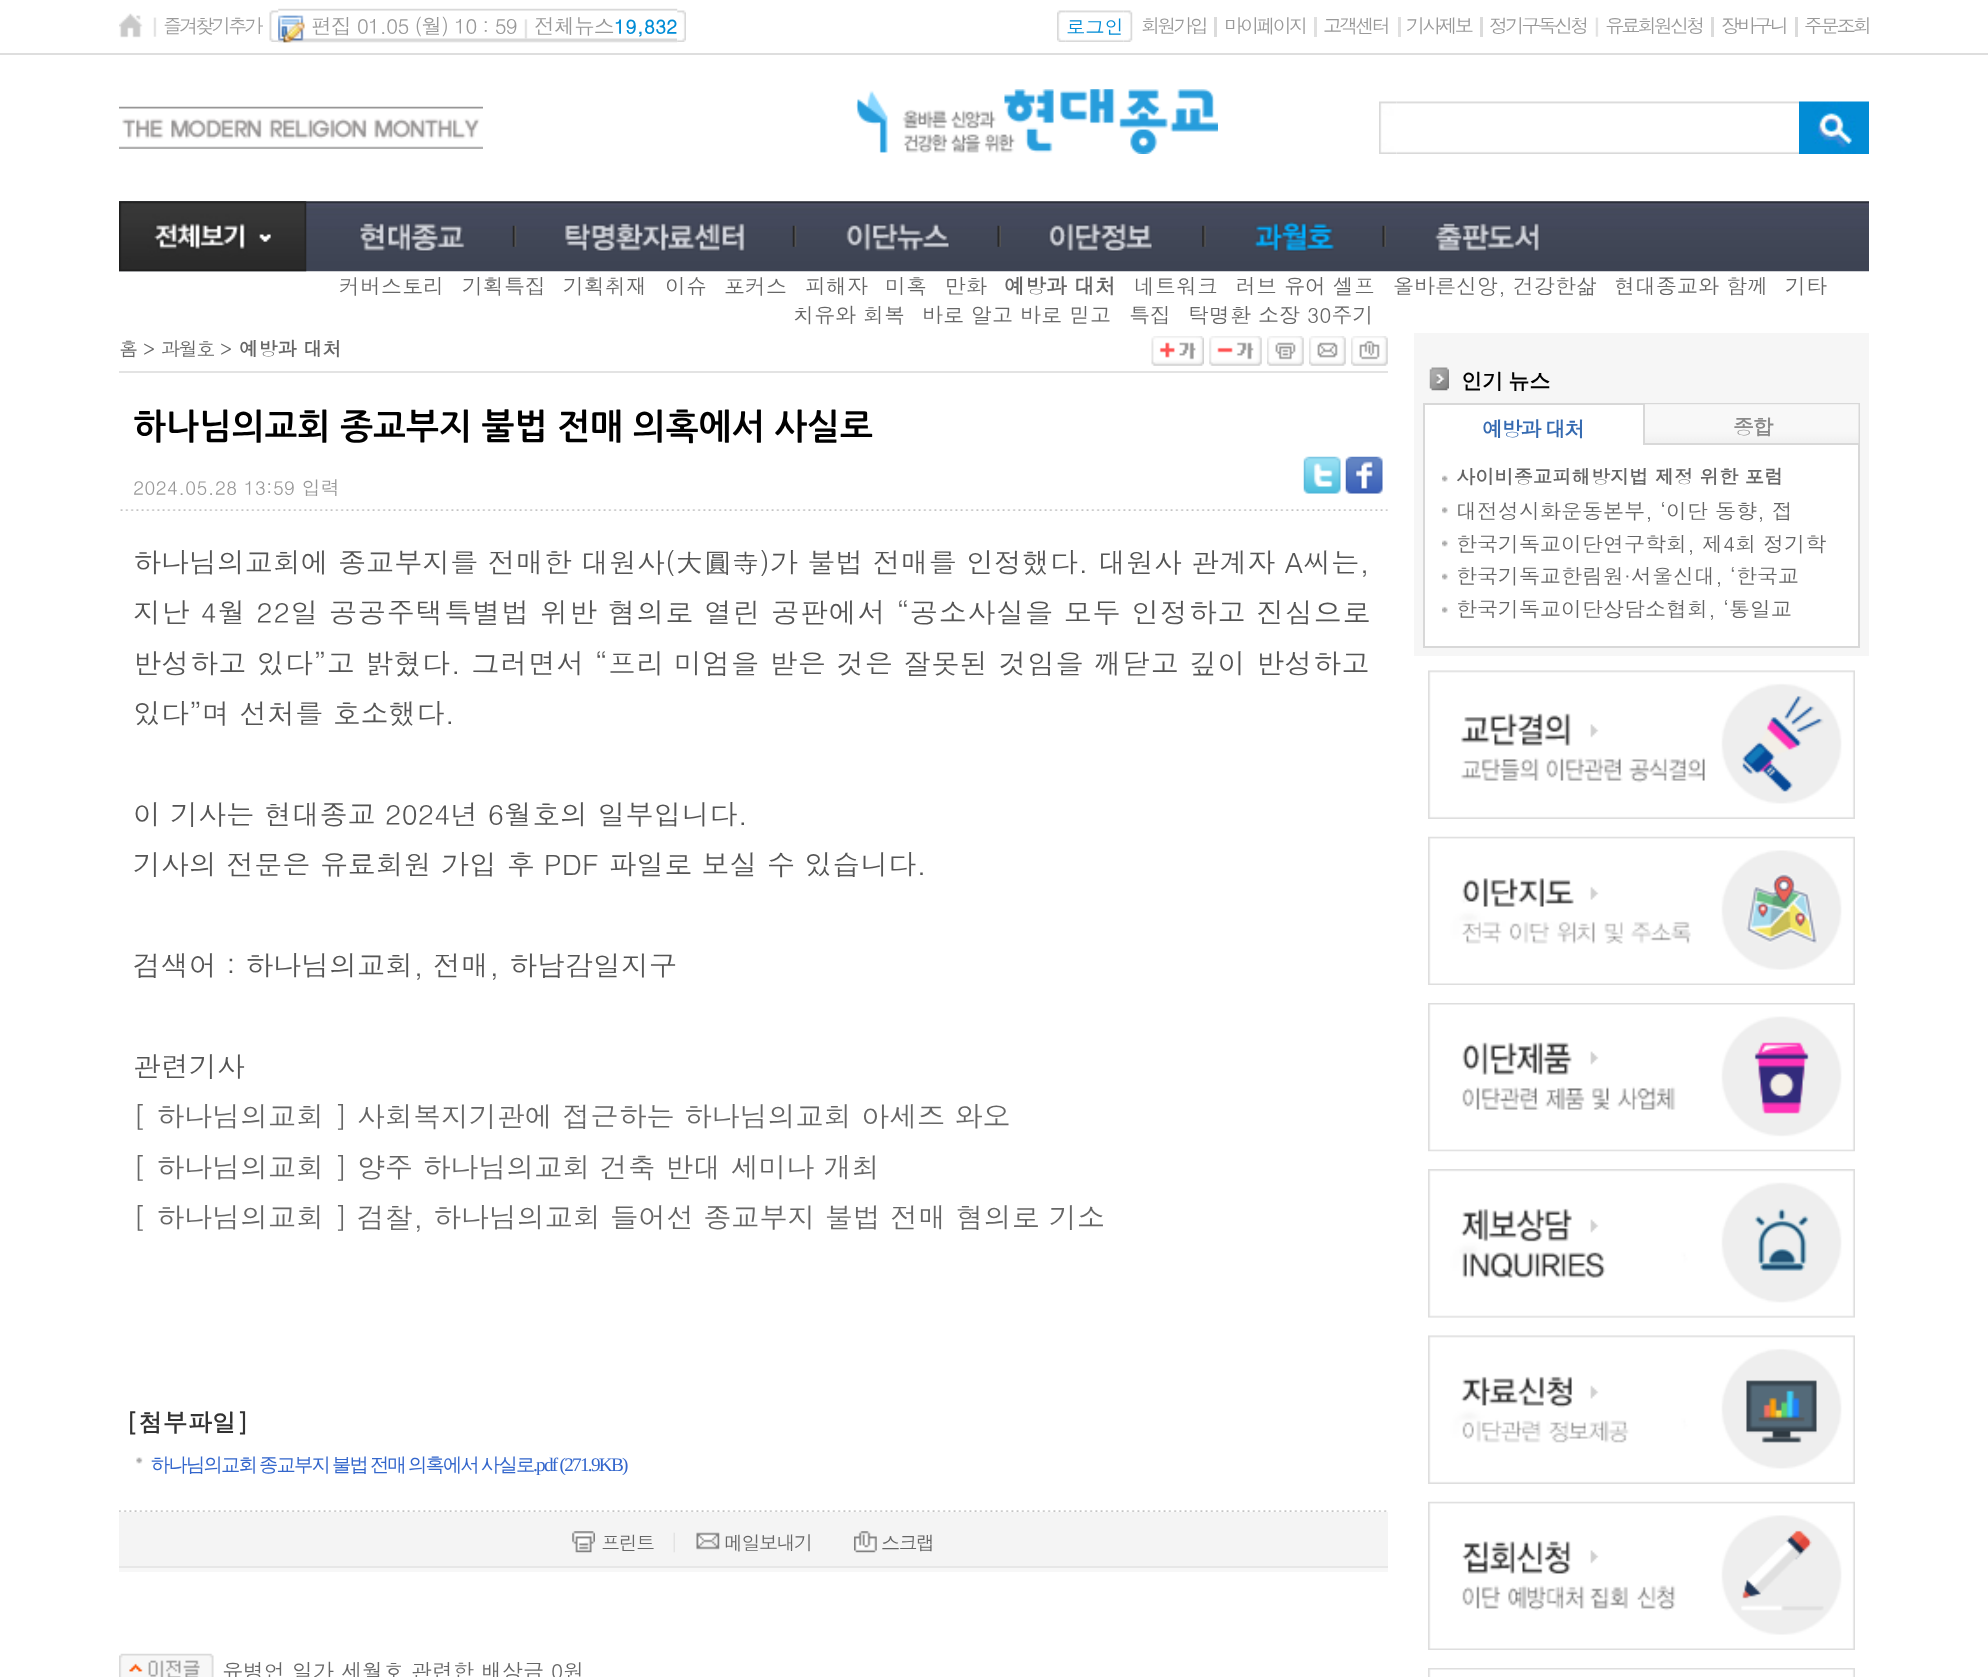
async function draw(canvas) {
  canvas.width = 1988
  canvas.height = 1677
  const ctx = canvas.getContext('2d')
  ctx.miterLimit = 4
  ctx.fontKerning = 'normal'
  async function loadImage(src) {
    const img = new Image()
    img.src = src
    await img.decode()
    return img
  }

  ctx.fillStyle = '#fff'
  ctx.fillRect(0, 0, 1988, 1677)
  ctx.fillStyle = '#dedede'
  ctx.fillRect(0, 53, 1988, 2)
  ctx.drawImage(await loadImage('image0.png'), 119, 13, 24, 25)
  ctx.drawImage(await loadImage('image1.png'), 153, 17, 4, 20)
  ctx.letterSpacing = '-3px'
  ctx.font = '19.25px Dotum'
  ctx.fillStyle = '#999'
  ctx.fillText('즐겨찾기추가', 163, 33)
  ctx.drawImage(await loadImage('image3.png'), 278, 8, 400, 35)
  ctx.drawImage(await loadImage('image2.png'), 269, 10, 10, 32)
  ctx.drawImage(await loadImage('image4.png'), 278, 15, 27, 28)
  ctx.letterSpacing = '-1.05px'
  ctx.font = '21px Dotum'
  ctx.fillText('편집 01.05 (월) 10 : 59', 311, 34)
  ctx.drawImage(await loadImage('image5.png'), 524, 19, 4, 20)
  ctx.fillText('전체뉴스', 534, 34)
  ctx.letterSpacing = '0px'
  ctx.font = 'bold 19.25px Dotum'
  ctx.fillStyle = '#008cd6'
  ctx.fillText('19,832', 614, 34)
  ctx.drawImage(await loadImage('image6.png'), 677, 10, 9, 32)
  ctx.drawImage(await loadImage('image8.png'), 1065, 10, 59, 32)
  ctx.drawImage(await loadImage('image7.png'), 1057, 10, 9, 32)
  ctx.font = '19.25px Dotum'
  ctx.fillText('로그인', 1066, 34)
  ctx.drawImage(await loadImage('image9.png'), 1123, 10, 10, 32)
  ctx.letterSpacing = '-3px'
  ctx.fillStyle = '#999'
  ctx.fillText('회원가입', 1141, 33)
  ctx.fillStyle = '#dbdbdb'
  ctx.fillRect(1214, 17, 3, 20)
  ctx.fillStyle = '#999'
  ctx.fillText('마이페이지', 1224, 33)
  ctx.fillStyle = '#e0e0e0'
  ctx.fillRect(1314, 17, 3, 20)
  ctx.fillStyle = '#999'
  ctx.fillText('고객센터', 1323, 33)
  ctx.fillStyle = '#e0e0e0'
  ctx.fillRect(1398, 17, 3, 20)
  ctx.fillStyle = '#999'
  ctx.fillText('기사제보', 1406, 33)
  ctx.fillStyle = '#dbdbdb'
  ctx.fillRect(1480, 17, 3, 20)
  ctx.fillStyle = '#999'
  ctx.fillText('정기구독신청', 1489, 33)
  ctx.drawImage(await loadImage('image1.png'), 1595, 17, 4, 20)
  ctx.fillText('유료회원신청', 1605, 33)
  ctx.fillStyle = '#dbdbdb'
  ctx.fillRect(1711, 17, 3, 20)
  ctx.fillStyle = '#999'
  ctx.fillText('장바구니', 1721, 33)
  ctx.fillStyle = '#dbdbdb'
  ctx.fillRect(1795, 17, 3, 20)
  ctx.fillStyle = '#999'
  ctx.fillText('주문조회', 1804, 33)
  ctx.drawImage(await loadImage('image10.png'), 119, 106, 364, 43)
  ctx.drawImage(await loadImage('image11.png'), 856, 89, 362, 65)
  ctx.drawImage(await loadImage('image13.png'), 1396, 101, 403, 53)
  ctx.drawImage(await loadImage('image12.png'), 1379, 101, 18, 53)
  ctx.drawImage(await loadImage('image14.png'), 1799, 101, 70, 53)
  ctx.drawImage(await loadImage('image15.png'), 119, 201, 1750, 71)
  ctx.drawImage(await loadImage('image16.png'), 119, 201, 188, 71)
  ctx.drawImage(await loadImage('image17.png'), 359, 222, 106, 30)
  ctx.drawImage(await loadImage('image18.png'), 512, 225, 5, 22)
  ctx.drawImage(await loadImage('image19.png'), 565, 222, 181, 30)
  ctx.drawImage(await loadImage('image20.png'), 792, 225, 5, 22)
  ctx.drawImage(await loadImage('image21.png'), 846, 222, 104, 29)
  ctx.drawImage(await loadImage('image22.png'), 997, 225, 4, 22)
  ctx.drawImage(await loadImage('image23.png'), 1048, 222, 105, 30)
  ctx.drawImage(await loadImage('image24.png'), 1202, 225, 4, 22)
  ctx.drawImage(await loadImage('image25.png'), 1254, 222, 80, 30)
  ctx.drawImage(await loadImage('image22.png'), 1382, 225, 4, 22)
  ctx.drawImage(await loadImage('image26.png'), 1434, 222, 106, 30)
  ctx.letterSpacing = '0px'
  ctx.font = '21px Dotum'
  ctx.fillStyle = '#666'
  ctx.fillText('커버스토리', 339, 294)
  ctx.fillText('기획특집', 462, 294)
  ctx.fillText('기획취재', 563, 294)
  ctx.fillText('이슈', 665, 294)
  ctx.fillText('포커스', 724, 294)
  ctx.fillText('피해자', 805, 294)
  ctx.fillText('미혹', 885, 294)
  ctx.fillText('만화', 945, 294)
  ctx.font = 'bold 21px Dotum'
  ctx.fillText('예방과 대처', 1004, 294)
  ctx.font = '21px Dotum'
  ctx.fillText('네트워크', 1134, 294)
  ctx.fillText('러브 유어 셀프', 1235, 294)
  ctx.fillText('올바른신앙, 건강한삶', 1393, 294)
  ctx.fillText('현대종교와 함께', 1614, 294)
  ctx.fillText('기타', 1785, 294)
  ctx.fillText('치유와 회복', 793, 323)
  ctx.fillText('바로 알고 바로 믿고', 922, 323)
  ctx.fillText('특집', 1129, 323)
  ctx.fillText('탁명환 소장 30주기', 1188, 323)
  ctx.letterSpacing = '-1.75px'
  ctx.font = '19.25px Dotum'
  ctx.fillText('홈', 119, 356)
  ctx.letterSpacing = '0px'
  ctx.fillText('>', 143, 356)
  ctx.letterSpacing = '-1.75px'
  ctx.fillText('과월호', 161, 356)
  ctx.letterSpacing = '0px'
  ctx.fillText('>', 220, 356)
  ctx.font = 'bold 19.25px Dotum'
  ctx.fillText('예방과 대처', 239, 356)
  ctx.drawImage(await loadImage('image27.png'), 1151, 336, 53, 30)
  ctx.drawImage(await loadImage('image28.png'), 1209, 336, 53, 30)
  ctx.drawImage(await loadImage('image29.png'), 1267, 336, 37, 30)
  ctx.drawImage(await loadImage('image30.png'), 1309, 336, 37, 30)
  ctx.drawImage(await loadImage('image31.png'), 1351, 336, 37, 30)
  ctx.fillStyle = '#e3e3e3'
  ctx.fillRect(119, 371, 1269, 2)
  ctx.drawImage(await loadImage('image32.png'), 120, 509, 1268, 2)
  ctx.font = 'bold 35px NanumGothic'
  ctx.fillStyle = '#000'
  ctx.fillText('하나님의교회 종교부지 불법 전매 의혹에서 사실로', 133, 439)
  ctx.font = '19.25px Dotum'
  ctx.fillStyle = '#999'
  ctx.fillText('2024.05.28 13:59 입력', 133, 495)
  ctx.drawImage(await loadImage('image33.png'), 1303, 456, 38, 38)
  ctx.drawImage(await loadImage('image34.png'), 1345, 456, 38, 38)
  ctx.font = '28px Dotum'
  ctx.fillStyle = '#555'
  ctx.fillText('하나님의교회에 종교부지를 전매한 대원사(大圓寺)가 불법 전매를 인정했다. 대원사 관계자 A씨는,', 133, 573)
  ctx.letterSpacing = '0.72px'
  ctx.fillText('지난 4월 22일 공공주택특별법 위반 혐의로 열린 공판에서 “공소사실을 모두 인정하고 진심으로', 133, 623)
  ctx.letterSpacing = '0.45px'
  ctx.fillText('반성하고 있다”고 밝혔다. 그러면서 “프리', 133, 674)
  ctx.letterSpacing = '0.5px'
  ctx.fillText('미엄을 받은 것은 잘못된 것임을 깨닫고 깊이 반성하고', 674, 674)
  ctx.letterSpacing = '0px'
  ctx.fillText('있다”며 선처를 호소했다.', 133, 724)
  ctx.fillText('이 기사는 현대종교 2024년 6월호의 일부입니다.', 133, 825)
  ctx.fillText('기사의 전문은 유료회원 가입 후 PDF 파일로 보실 수 있습니다.', 133, 875)
  ctx.fillText('검색어 : 하나님의교회, 전매, 하남감일지구', 133, 976)
  ctx.fillText('관련기사', 133, 1077)
  ctx.fillStyle = '#666'
  ctx.fillText('[ 하나님의교회 ] 사회복지기관에 접근하는 하나님의교회 아세즈 와오', 133, 1127)
  ctx.fillText('[ 하나님의교회 ] 양주 하나님의교회 건축 반대 세미나 개최', 133, 1178)
  ctx.fillText('[ 하나님의교회 ] 검찰, 하나님의교회 들어선 종교부지 불법 전매 혐의로 기소', 133, 1228)
  ctx.font = 'bold 24.5px Dotum'
  ctx.fillStyle = '#333'
  ctx.fillText('[첨부파일]', 126, 1432)
  ctx.drawImage(await loadImage('image35.png'), 136, 1457, 7, 7)
  ctx.letterSpacing = '-1.75px'
  ctx.font = '500 19.25px WenQuanYi Zen Hei'
  ctx.fillStyle = '#36c'
  ctx.fillText('하나님의교회', 151, 1471)
  ctx.fillText('종교부지', 259, 1471)
  ctx.fillText('불법', 332, 1471)
  ctx.fillText('전매', 370, 1471)
  ctx.fillText('의혹에서', 408, 1471)
  ctx.fillText('사실로', 481, 1471)
  ctx.font = '19.25px Liberation Serif'
  ctx.fillText('.pdf (271.9KB)', 533, 1471)
  ctx.drawImage(await loadImage('image36.png'), 119, 1510, 1268, 2)
  ctx.fillStyle = '#f7f7f7'
  ctx.fillRect(119, 1568, 1269, 4)
  ctx.fillStyle = '#f4f4f4'
  ctx.fillRect(119, 1512, 1269, 54)
  ctx.fillStyle = '#e7e7e7'
  ctx.fillRect(119, 1566, 1269, 2)
  ctx.drawImage(await loadImage('image37.png'), 572, 1531, 23, 22)
  ctx.font = '19.25px Dotum'
  ctx.fillStyle = '#666'
  ctx.fillText('프린트', 601, 1550)
  ctx.letterSpacing = '0px'
  ctx.font = '21px Dotum'
  ctx.fillStyle = '#e2e2e2'
  ctx.fillText('|', 669, 1550)
  ctx.drawImage(await loadImage('image38.png'), 696, 1532, 24, 18)
  ctx.letterSpacing = '-1.75px'
  ctx.font = '19.25px Dotum'
  ctx.fillStyle = '#666'
  ctx.fillText('메일보내기', 724, 1550)
  ctx.drawImage(await loadImage('image39.png'), 854, 1531, 23, 22)
  ctx.fillText('스크랩', 881, 1550)
  ctx.drawImage(await loadImage('image40.png'), 119, 1653, 95, 24)
  ctx.letterSpacing = '0px'
  ctx.font = '21px Dotum'
  ctx.fillText('유병언 일가 세월호 관련한 배상금 0원', 222, 1679)
  ctx.fillStyle = '#f6f6f6'
  ctx.fillRect(1414, 333, 455, 323)
  ctx.drawImage(await loadImage('image41.png'), 1429, 367, 20, 24)
  ctx.wordSpacing = '-1px'
  ctx.font = 'bold 21px WenQuanYi Zen Hei'
  ctx.fillStyle = '#000'
  ctx.fillText('인기 뉴스', 1461, 388)
  ctx.fillStyle = '#fff'
  ctx.beginPath()
  ctx.rect(1424, 404, 435, 243)
  ctx.fill()
  ctx.strokeStyle = '#d8d8d8'
  ctx.lineWidth = 2
  ctx.stroke()
  ctx.letterSpacing = '-1.75px'
  ctx.wordSpacing = '0px'
  ctx.font = 'bold 21px Dotum'
  ctx.fillStyle = '#356ab1'
  ctx.fillText('예방과 대처', 1482, 437)
  ctx.drawImage(await loadImage('image42.png'), 1645, 404, 214, 39)
  ctx.fillStyle = '#d8d8d8'
  ctx.fillRect(1643, 443, 216, 2)
  ctx.fillRect(1643, 404, 2, 41)
  ctx.fillStyle = '#8a8a8a'
  ctx.fillText('종합', 1733, 435)
  ctx.drawImage(await loadImage('image43.png'), 1442, 475, 6, 7)
  ctx.letterSpacing = '0px'
  ctx.font = 'bold 19.25px Dotum'
  ctx.fillStyle = '#666'
  ctx.fillText('사이비종교피해방지법 제정 위한 포럼', 1456, 484)
  ctx.drawImage(await loadImage('image44.png'), 1442, 507, 6, 7)
  ctx.font = '21px Dotum'
  ctx.fillText('대전성시화운동본부, ‘이단 동향, 접', 1456, 519)
  ctx.drawImage(await loadImage('image45.png'), 1442, 540, 6, 7)
  ctx.fillText('한국기독교이단연구학회, 제4회 정기학', 1456, 552)
  ctx.drawImage(await loadImage('image43.png'), 1442, 573, 6, 7)
  ctx.fillText('한국기독교한림원·서울신대, ‘한국교', 1456, 584)
  ctx.drawImage(await loadImage('image46.png'), 1442, 606, 6, 7)
  ctx.fillText('한국기독교이단상담소협회, ‘통일교', 1456, 617)
  ctx.drawImage(await loadImage('image47.png'), 1428, 670, 427, 149)
  ctx.drawImage(await loadImage('image48.png'), 1428, 836, 427, 149)
  ctx.drawImage(await loadImage('image49.png'), 1428, 1003, 427, 149)
  ctx.drawImage(await loadImage('image50.png'), 1428, 1169, 427, 149)
  ctx.drawImage(await loadImage('image51.png'), 1428, 1335, 427, 149)
  ctx.drawImage(await loadImage('image52.png'), 1428, 1501, 427, 149)
  ctx.drawImage(await loadImage('image53.png'), 1428, 1668, 427, 9)
}

draw(document.querySelector('canvas'))
